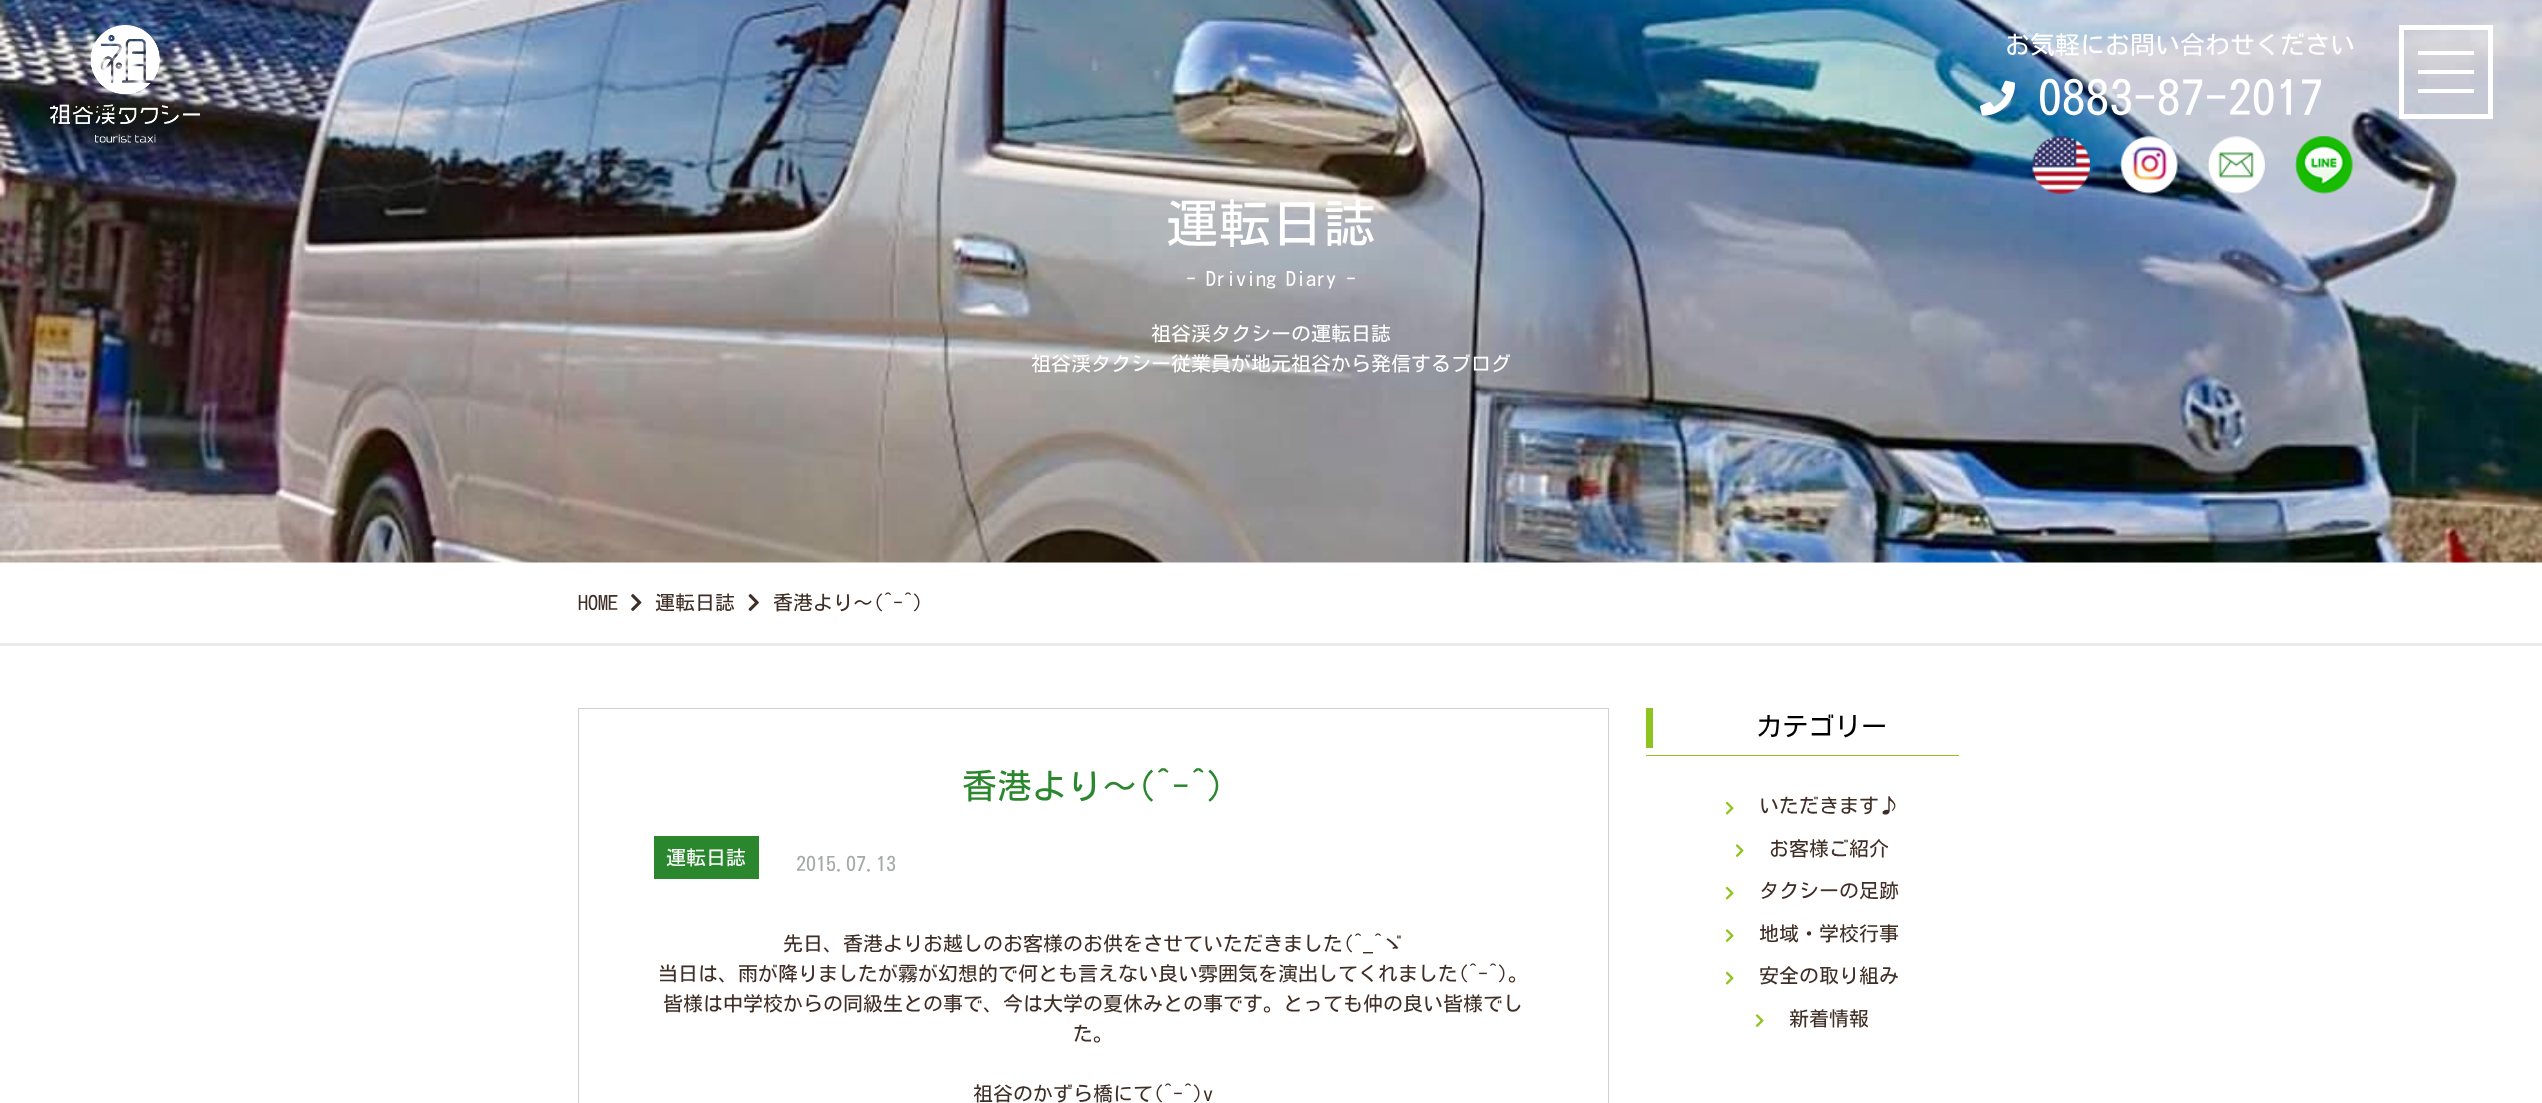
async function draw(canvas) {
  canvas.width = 2542
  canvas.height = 1103
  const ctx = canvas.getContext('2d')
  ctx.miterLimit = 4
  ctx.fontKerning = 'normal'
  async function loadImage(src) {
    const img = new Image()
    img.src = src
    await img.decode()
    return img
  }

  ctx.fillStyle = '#fff'
  ctx.fillRect(0, 0, 2542, 1103)
  ctx.drawImage(await loadImage('image6.png'), 0, 0, 2542, 563)
  ctx.drawImage(await loadImage('image0.png'), 50, 25, 150, 118)
  ctx.font = '25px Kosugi'
  ctx.fillText('お気軽にお問い合わせください', 2005, 54)
  ctx.drawImage(await loadImage('image1.png'), 1980, 80, 35, 36)
  ctx.font = '47.5px Kosugi'
  ctx.fillText('0883-87-2017', 2038, 115)
  ctx.drawImage(await loadImage('image2.png'), 2032, 136, 58, 58)
  ctx.drawImage(await loadImage('image3.png'), 2120, 136, 58, 58)
  ctx.drawImage(await loadImage('image4.png'), 2207, 136, 58, 58)
  ctx.drawImage(await loadImage('image5.png'), 2295, 136, 58, 58)
  ctx.strokeStyle = '#fff'
  ctx.lineWidth = 5
  ctx.strokeRect(2401.5, 27.5, 89, 89)
  ctx.fillRect(2418, 51, 56, 4)
  ctx.fillRect(2418, 70, 56, 4)
  ctx.fillRect(2418, 89, 56, 4)
  ctx.font = '52.5px Kosugi'
  ctx.fillText('運転日誌', 1166, 243)
  ctx.font = '20px Kosugi'
  ctx.fillText('- Driving Diary -', 1186, 286)
  ctx.fillText('祖谷渓タクシーの運転日誌', 1151, 341)
  ctx.fillText('祖谷渓タクシー従業員が地元祖谷から発信するブログ', 1031, 371)
  ctx.fillStyle = '#eaeaea'
  ctx.fillRect(0, 643, 2542, 3)
  ctx.fillStyle = '#3f2e25'
  ctx.fillText('HOME', 578, 610)
  ctx.drawImage(await loadImage('image7.png'), 631, 594, 11, 17)
  ctx.fillText('運転日誌', 655, 610)
  ctx.drawImage(await loadImage('image8.png'), 748, 594, 11, 17)
  ctx.fillText('香港より～(^-^)', 773, 610)
  ctx.strokeStyle = '#d2d2d2'
  ctx.lineWidth = 1
  ctx.strokeRect(578.5, 708.5, 1030, 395)
  ctx.font = '35px Kosugi'
  ctx.fillStyle = '#2b872e'
  ctx.fillText('香港より～(^-^)', 962, 799)
  ctx.fillRect(654, 836, 105, 43)
  ctx.font = '20px Kosugi'
  ctx.fillStyle = '#fff'
  ctx.fillText('運転日誌', 666, 865)
  ctx.fillStyle = '#a4aaa5'
  ctx.fillText('2015.07.13', 796, 871)
  ctx.fillStyle = '#3f2e25'
  ctx.fillText('先日、香港よりお越しのお客様のお供をさせていただきました(^_^ゞ', 783, 951)
  ctx.fillText('当日は、雨が降りましたが霧が幻想的で何とも言えない良い雰囲気を演出してくれました(^-^)。', 658, 981)
  ctx.fillText('皆様は中学校からの同級生との事で、今は大学の夏休みとの事です。とっても仲の良い皆様でし', 663, 1011)
  ctx.fillText('た。', 1073, 1041)
  ctx.fillText('祖谷のかずら橋にて(^-^)v', 973, 1101)
  ctx.fillStyle = '#8fc31f'
  ctx.fillRect(1646, 708, 7, 40)
  ctx.font = '26.25px Kosugi'
  ctx.fillStyle = '#000'
  ctx.fillText('カテゴリー', 1756, 736)
  ctx.fillStyle = '#8fc31f'
  ctx.fillRect(1646, 755, 313, 1)
  ctx.drawImage(await loadImage('image9.png'), 1725, 801, 9, 14)
  ctx.font = '20px Kosugi'
  ctx.fillStyle = '#3f2e25'
  ctx.fillText('いただきます♪', 1759, 813)
  ctx.drawImage(await loadImage('image10.png'), 1735, 844, 9, 13)
  ctx.fillText('お客様ご紹介', 1769, 856)
  ctx.drawImage(await loadImage('image9.png'), 1725, 886, 9, 14)
  ctx.fillText('タクシーの足跡', 1759, 898)
  ctx.drawImage(await loadImage('image10.png'), 1725, 929, 9, 13)
  ctx.fillText('地域・学校行事', 1759, 941)
  ctx.drawImage(await loadImage('image9.png'), 1725, 971, 9, 14)
  ctx.fillText('安全の取り組み', 1759, 983)
  ctx.drawImage(await loadImage('image10.png'), 1755, 1014, 9, 13)
  ctx.fillText('新着情報', 1789, 1026)
}

draw(document.querySelector('canvas'))
